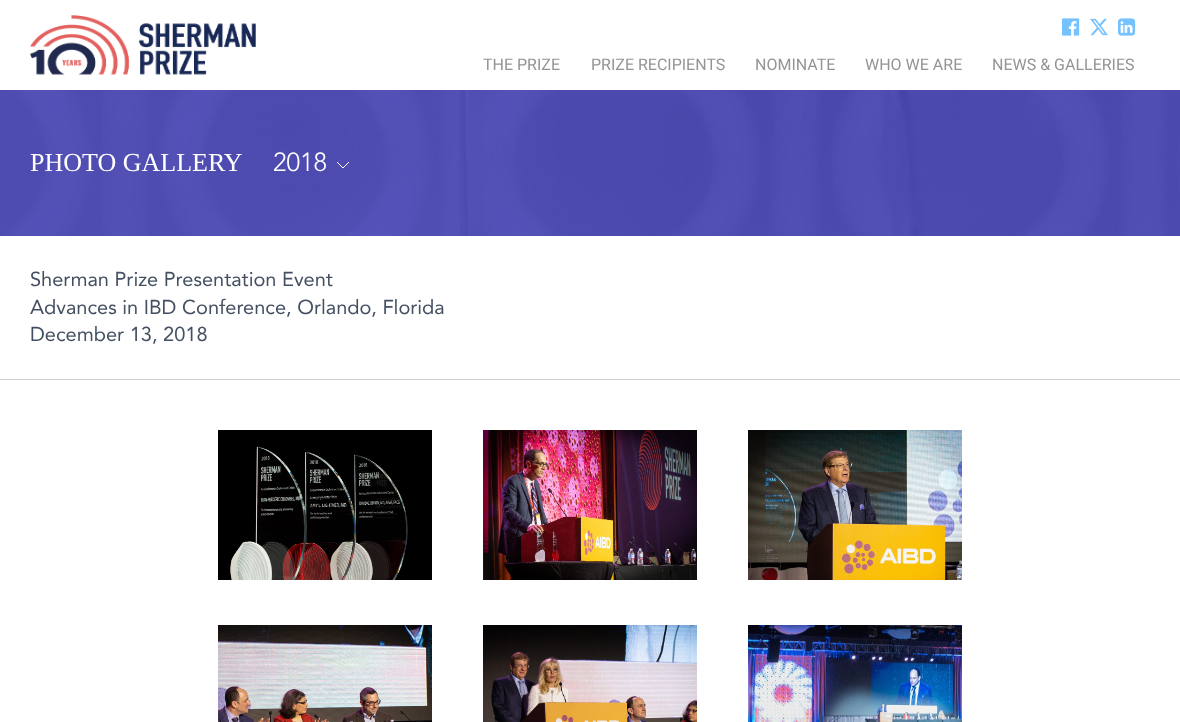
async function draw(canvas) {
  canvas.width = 1180
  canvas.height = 722
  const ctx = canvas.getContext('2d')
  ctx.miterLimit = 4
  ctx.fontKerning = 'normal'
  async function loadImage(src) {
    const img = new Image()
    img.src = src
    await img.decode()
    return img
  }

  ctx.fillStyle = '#fff'
  ctx.fillRect(0, 0, 1180, 722)
  ctx.drawImage(await loadImage('image0.png'), 30, 15, 226, 60)
  ctx.drawImage(await loadImage('image1.png'), 1062, 18, 18, 18)
  ctx.drawImage(await loadImage('image2.png'), 1090, 18, 18, 18)
  ctx.drawImage(await loadImage('image3.png'), 1118, 18, 18, 18)
  ctx.font = '16px Roboto'
  ctx.fillStyle = '#949494'
  ctx.fillText('THE PRIZE', 483, 70)
  ctx.fillText('PRIZE RECIPIENTS', 591, 70)
  ctx.fillText('NOMINATE', 755, 70)
  ctx.fillText('WHO WE ARE', 865, 70)
  ctx.fillText('NEWS & GALLERIES', 992, 70)
  ctx.drawImage(await loadImage('image4.png'), 0, 90, 1180, 146)
  ctx.font = '26px Liberation Serif'
  ctx.fillStyle = '#fff'
  ctx.fillText('PHOTO GALLERY', 30, 171)
  ctx.font = '300 26px Avenir'
  ctx.fillText('2018', 273, 171)
  ctx.beginPath()
  ctx.moveTo(349, 162)
  ctx.lineTo(343, 168)
  ctx.lineTo(337, 162)
  ctx.strokeStyle = '#fff'
  ctx.stroke()
  ctx.fillStyle = '#cfcfcf'
  ctx.fillRect(0, 379, 1180, 1)
  ctx.font = '20px Avenir'
  ctx.fillStyle = '#445062'
  ctx.fillText('Sherman Prize Presentation Event', 30, 286)
  ctx.fillText('Advances in IBD Conference, Orlando, Florida', 30, 314)
  ctx.fillText('December 13, 2018', 30, 341)
  ctx.drawImage(await loadImage('image5.png'), 218, 430, 214, 150)
  ctx.drawImage(await loadImage('image6.png'), 483, 430, 214, 150)
  ctx.drawImage(await loadImage('image7.png'), 748, 430, 214, 150)
  ctx.drawImage(await loadImage('image8.png'), 218, 625, 214, 97)
  ctx.drawImage(await loadImage('image9.png'), 483, 625, 214, 97)
  ctx.drawImage(await loadImage('image10.png'), 748, 625, 214, 97)
}

draw(document.querySelector('canvas'))
